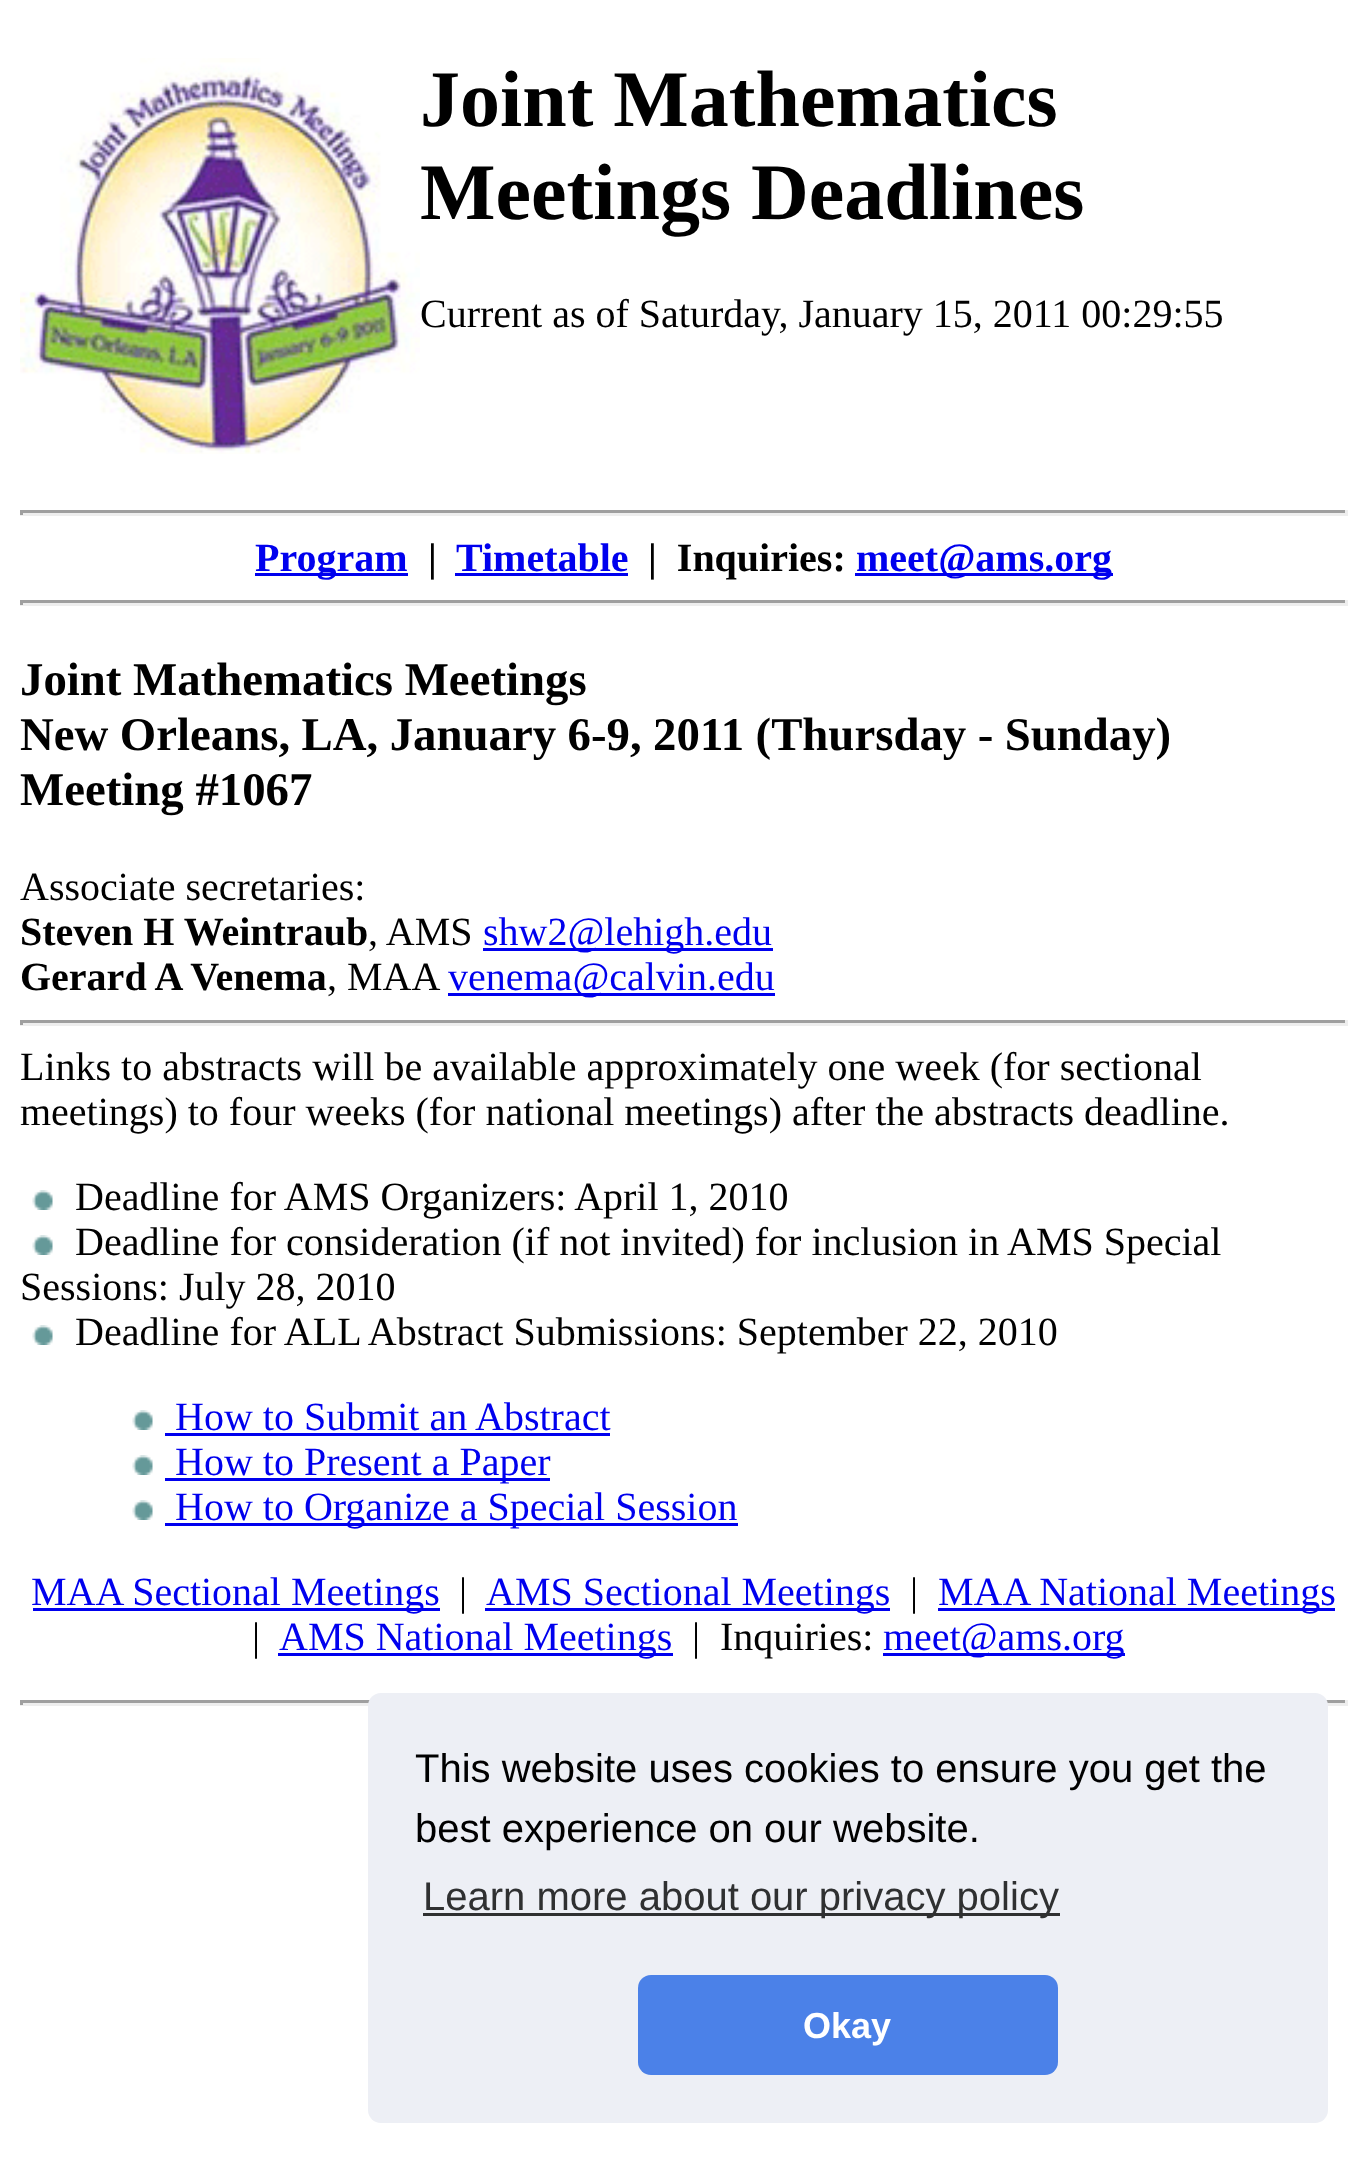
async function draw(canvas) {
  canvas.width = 1367
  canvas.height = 2161
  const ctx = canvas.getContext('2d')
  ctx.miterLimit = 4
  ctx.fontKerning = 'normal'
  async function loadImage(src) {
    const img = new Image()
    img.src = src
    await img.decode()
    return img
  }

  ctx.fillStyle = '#fff'
  ctx.fillRect(0, 0, 1367, 2161)
  ctx.drawImage(await loadImage('image0.png'), 20, 58, 400, 396)
  ctx.font = 'bold 80px Liberation Serif'
  ctx.fillStyle = '#000'
  ctx.fillText('Joint Mathematics', 420, 126)
  ctx.fillText('Meetings Deadlines', 420, 219)
  ctx.font = '40px Liberation Serif'
  ctx.fillText('Current as of Saturday, January 15, 2011 00:29:55', 420, 327)
  ctx.fillStyle = '#9f9f9f'
  ctx.fillRect(20, 510, 1328, 3)
  ctx.fillStyle = '#eee'
  ctx.fillRect(1345, 510, 3, 5)
  ctx.fillRect(20, 513, 1328, 3)
  ctx.fillStyle = '#9f9f9f'
  ctx.fillRect(20, 510, 3, 5)
  ctx.fillStyle = '#00e'
  ctx.fillRect(255, 573, 153, 3)
  ctx.font = 'bold 40px Liberation Serif'
  ctx.fillText('Program', 255, 571)
  ctx.fillStyle = '#000'
  ctx.fillText('|', 428, 571)
  ctx.fillStyle = '#00e'
  ctx.fillText('Timetable', 456, 571)
  ctx.fillRect(455, 573, 173, 3)
  ctx.fillStyle = '#000'
  ctx.fillText('|  Inquiries:', 648, 571)
  ctx.fillStyle = '#00e'
  ctx.fillRect(855, 573, 258, 3)
  ctx.fillText('meet@ams.org', 856, 571)
  ctx.fillStyle = '#9f9f9f'
  ctx.fillRect(20, 600, 1328, 3)
  ctx.fillStyle = '#eee'
  ctx.fillRect(1345, 600, 3, 5)
  ctx.fillRect(20, 603, 1328, 3)
  ctx.fillStyle = '#9f9f9f'
  ctx.fillRect(20, 600, 3, 5)
  ctx.font = 'bold 46.8px Liberation Serif'
  ctx.fillStyle = '#000'
  ctx.fillText('Joint Mathematics Meetings', 20, 695)
  ctx.wordSpacing = '-0.25px'
  ctx.fillText('New Orleans, LA, January 6-9, 2011 (Thursday - Sunday)', 20, 750)
  ctx.wordSpacing = '0px'
  ctx.fillText('Meeting #1067', 20, 805)
  ctx.font = '40px Liberation Serif'
  ctx.fillText('Associate secretaries:', 20, 900)
  ctx.font = 'bold 40px Liberation Serif'
  ctx.fillText('Steven H Weintraub', 20, 945)
  ctx.font = '40px Liberation Serif'
  ctx.fillText(', AMS', 368, 945)
  ctx.fillStyle = '#00e'
  ctx.fillRect(483, 948, 290, 3)
  ctx.fillText('shw2@lehigh.edu', 483, 945)
  ctx.font = 'bold 40px Liberation Serif'
  ctx.fillStyle = '#000'
  ctx.fillText('Gerard A Venema', 20, 990)
  ctx.font = '40px Liberation Serif'
  ctx.fillText(', MAA', 327, 990)
  ctx.fillStyle = '#00e'
  ctx.fillRect(448, 993, 327, 3)
  ctx.fillText('venema@calvin.edu', 448, 990)
  ctx.fillStyle = '#9f9f9f'
  ctx.fillRect(20, 1020, 1328, 3)
  ctx.fillStyle = '#eee'
  ctx.fillRect(1345, 1020, 3, 5)
  ctx.fillRect(20, 1023, 1328, 3)
  ctx.fillStyle = '#9f9f9f'
  ctx.fillRect(20, 1020, 3, 5)
  ctx.fillStyle = '#000'
  ctx.fillText('Links to abstracts will be available approximately one week (for sectional', 20, 1080)
  ctx.fillText('meetings) to four weeks (for national meetings) after the abstracts deadline.', 20, 1125)
  ctx.drawImage(await loadImage('image1.png'), 32, 1190, 21, 20)
  ctx.fillText('Deadline for AMS Organizers: April 1, 2010', 75, 1210)
  ctx.drawImage(await loadImage('image1.png'), 32, 1235, 21, 20)
  ctx.fillText('Deadline for consideration (if not invited) for inclusion in AMS Special', 75, 1255)
  ctx.fillText('Sessions: July 28, 2010', 20, 1300)
  ctx.drawImage(await loadImage('image1.png'), 32, 1325, 21, 20)
  ctx.fillText('Deadline for ALL Abstract Submissions: September 22, 2010', 75, 1345)
  ctx.drawImage(await loadImage('image1.png'), 132, 1410, 21, 20)
  ctx.fillStyle = '#00e'
  ctx.fillText('How to Submit an Abstract', 175, 1430)
  ctx.fillRect(165, 1433, 445, 3)
  ctx.drawImage(await loadImage('image1.png'), 132, 1455, 21, 20)
  ctx.fillRect(165, 1478, 385, 3)
  ctx.fillText('How to Present a Paper', 175, 1475)
  ctx.drawImage(await loadImage('image1.png'), 132, 1500, 21, 20)
  ctx.fillRect(165, 1523, 573, 3)
  ctx.fillText('How to Organize a Special Session', 175, 1520)
  ctx.fillRect(33, 1608, 407, 3)
  ctx.fillText('MAA Sectional Meetings', 31, 1605)
  ctx.fillStyle = '#000'
  ctx.fillText('|', 459, 1605)
  ctx.fillStyle = '#00e'
  ctx.fillRect(485, 1608, 405, 3)
  ctx.fillText('AMS Sectional Meetings', 486, 1605)
  ctx.fillStyle = '#000'
  ctx.fillText('|', 910, 1605)
  ctx.fillStyle = '#00e'
  ctx.fillRect(938, 1608, 397, 3)
  ctx.fillText('MAA National Meetings', 938, 1605)
  ctx.fillStyle = '#000'
  ctx.fillText('|', 252, 1650)
  ctx.fillStyle = '#00e'
  ctx.fillRect(278, 1653, 395, 3)
  ctx.fillText('AMS National Meetings', 279, 1650)
  ctx.fillStyle = '#000'
  ctx.fillText('|  Inquiries:', 692, 1650)
  ctx.fillStyle = '#00e'
  ctx.fillRect(883, 1653, 242, 3)
  ctx.fillText('meet@ams.org', 883, 1650)
  ctx.fillStyle = '#9f9f9f'
  ctx.fillRect(20, 1700, 1328, 3)
  ctx.fillStyle = '#eee'
  ctx.fillRect(1345, 1700, 3, 5)
  ctx.fillRect(20, 1703, 1328, 3)
  ctx.fillStyle = '#9f9f9f'
  ctx.fillRect(20, 1700, 3, 5)
  ctx.fillStyle = '#edeff5'
  ctx.beginPath()
  ctx.roundRect(368, 1693, 960, 430, 13)
  ctx.fill()
  ctx.font = '40px Liberation Sans'
  ctx.fillStyle = '#000'
  ctx.fillText('This website uses cookies to ensure you get the', 415, 1782)
  ctx.fillText('best experience on our website.', 415, 1842)
  ctx.fillStyle = '#2f3031'
  ctx.fillRect(423, 1913, 637, 3)
  ctx.fillText('Learn more about our privacy policy', 423, 1910)
  ctx.fillStyle = '#4b81e8'
  ctx.beginPath()
  ctx.roundRect(638, 1975, 420, 100, 13)
  ctx.fill()
  ctx.font = 'bold 36px Liberation Sans'
  ctx.fillStyle = '#fff'
  ctx.fillText('Okay', 803, 2038)
}

draw(document.querySelector('canvas'))
